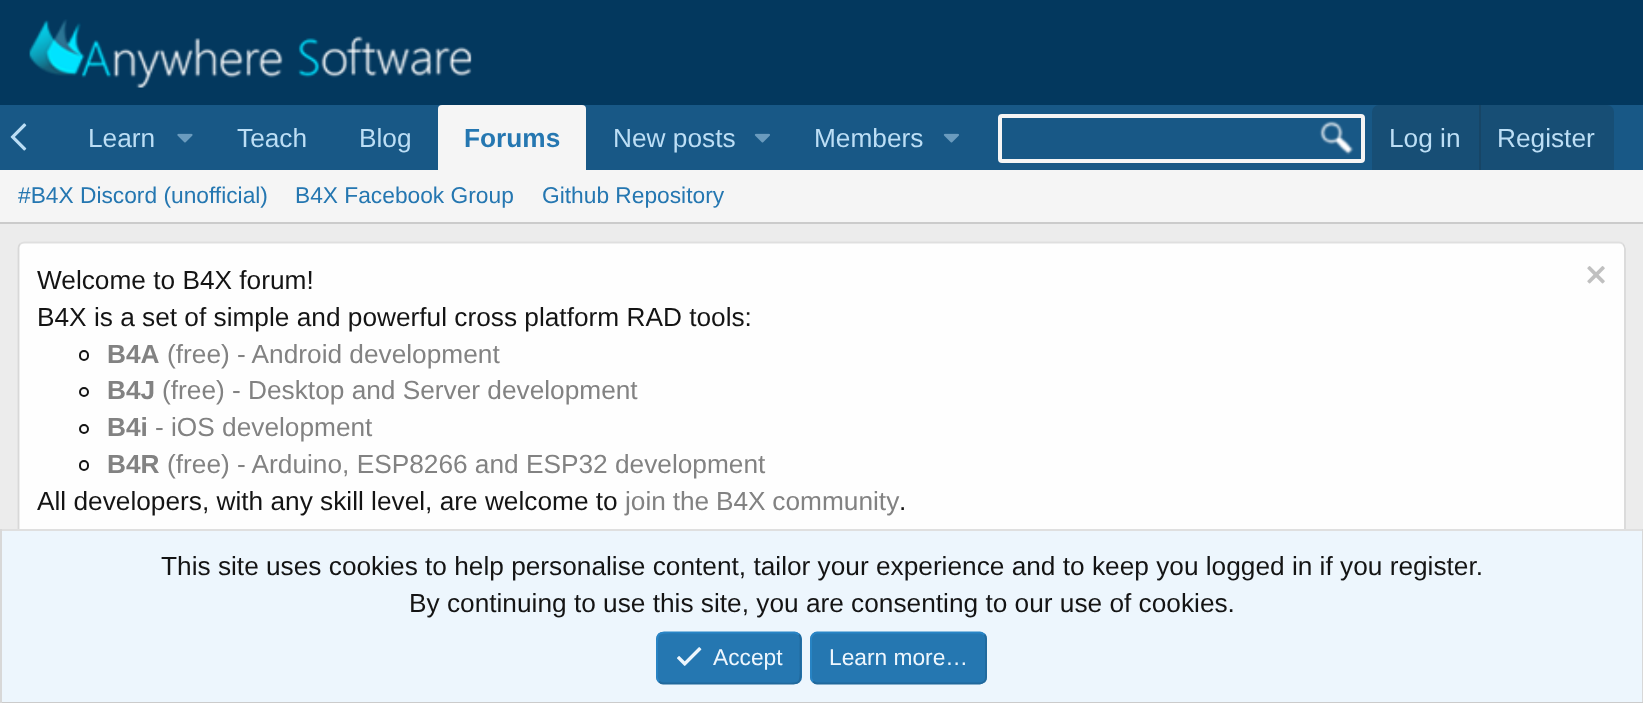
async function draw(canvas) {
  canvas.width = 1643
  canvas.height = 703
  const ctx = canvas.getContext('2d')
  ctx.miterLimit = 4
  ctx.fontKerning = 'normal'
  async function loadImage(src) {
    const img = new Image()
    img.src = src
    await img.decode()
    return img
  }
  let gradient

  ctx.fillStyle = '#ececec'
  ctx.fillRect(0, 0, 1643, 703)
  ctx.fillStyle = '#03385e'
  ctx.fillRect(0, 0, 1643, 105)
  ctx.drawImage(await loadImage('image0.png'), 29, 19, 443, 69)
  ctx.fillStyle = '#185886'
  ctx.fillRect(46, 105, 1597, 65)
  gradient = ctx.createLinearGradient(0, 137, 70, 137)
  gradient.addColorStop(0.66, '#185886')
  gradient.addColorStop(1, '#18588600')
  ctx.fillStyle = gradient
  ctx.fillRect(0, 105, 46, 65)
  ctx.drawImage(await loadImage('image1.png'), 10, 123, 17, 28)
  ctx.font = '26.25px Liberation Sans'
  ctx.fillStyle = '#bcdef5'
  ctx.fillText('Learn', 88, 147)
  ctx.drawImage(await loadImage('image2.png'), 177, 133, 16, 10)
  ctx.fillText('Teach', 237, 147)
  ctx.fillText('Blog', 359, 147)
  ctx.fillStyle = '#f5f5f5'
  ctx.beginPath()
  ctx.roundRect(438, 105, 148, 65, [4, 4, 0, 0])
  ctx.fill()
  ctx.font = 'bold 26.25px Liberation Sans'
  ctx.fillStyle = '#2577b1'
  ctx.fillText('Forums', 464, 147)
  ctx.font = '26.25px Liberation Sans'
  ctx.fillStyle = '#bcdef5'
  ctx.fillText('New posts', 613, 147)
  ctx.drawImage(await loadImage('image3.png'), 754, 133, 16, 10)
  ctx.fillText('Members', 814, 147)
  ctx.drawImage(await loadImage('image3.png'), 943, 133, 16, 10)
  ctx.drawImage(await loadImage('image4.png'), 1319, 121, 35, 34)
  ctx.beginPath()
  ctx.roundRect(1000, 116, 363, 45, 2)
  ctx.strokeStyle = '#f5f5f5'
  ctx.lineWidth = 4
  ctx.stroke()
  ctx.fillStyle = '#174e75'
  ctx.beginPath()
  ctx.roundRect(1372, 105, 242, 65, [7, 7, 0, 0])
  ctx.fill()
  ctx.fillStyle = '#bcdef5'
  ctx.fillText('Log in', 1389, 147)
  ctx.fillStyle = '#174566'
  ctx.fillRect(1479, 105, 2, 65)
  ctx.fillStyle = '#bcdef5'
  ctx.fillText('Register', 1497, 147)
  ctx.fillStyle = '#f5f5f5'
  ctx.fillRect(0, 170, 1643, 52)
  ctx.fillStyle = '#cbcbcb'
  ctx.fillRect(0, 222, 1643, 2)
  ctx.font = '22.75px Liberation Sans'
  ctx.fillStyle = '#2577b1'
  ctx.fillText('#B4X Discord (unofficial)', 18, 203)
  ctx.fillText('B4X Facebook Group', 295, 203)
  ctx.fillText('Github Repository', 542, 203)
  ctx.fillStyle = '#fefefe'
  ctx.beginPath()
  ctx.roundRect(18, 242, 1608, 295, 7)
  ctx.fill()
  ctx.beginPath()
  ctx.moveTo(20, 244)
  ctx.bezierCurveTo(21.5, 243, 23, 242.5, 24.5, 242.5)
  ctx.lineTo(1619, 242.5)
  ctx.bezierCurveTo(1620.5, 242.5, 1622, 243, 1623, 244)
  ctx.strokeStyle = '#dfdfdf'
  ctx.lineWidth = 1.8
  ctx.stroke()
  ctx.beginPath()
  ctx.moveTo(1623, 244)
  ctx.bezierCurveTo(1624, 245.5, 1625, 247, 1625, 248.5)
  ctx.lineTo(1625, 530)
  ctx.bezierCurveTo(1625, 532, 1624, 533.5, 1623, 534.5)
  ctx.strokeStyle = '#d8d8d8'
  ctx.stroke()
  ctx.beginPath()
  ctx.moveTo(20, 534.5)
  ctx.bezierCurveTo(19, 533.5, 18.5, 532, 18.5, 530)
  ctx.lineTo(18.5, 248.5)
  ctx.bezierCurveTo(18.5, 247, 19, 245.5, 20, 244)
  ctx.stroke()
  ctx.font = '26.25px Liberation Sans'
  ctx.fillStyle = '#141414'
  ctx.fillText('Welcome to B4X forum!', 37, 289)
  ctx.drawImage(await loadImage('image5.png'), 1587, 266, 18, 18)
  ctx.fillText('B4X is a set of simple and powerful cross platform RAD tools:', 37, 326)
  ctx.beginPath()
  ctx.roundRect(80, 351, 8, 9, 4)
  ctx.strokeStyle = '#141414'
  ctx.lineWidth = 2
  ctx.stroke()
  ctx.font = 'bold 26.25px Liberation Sans'
  ctx.fillStyle = '#828282'
  ctx.fillText('B4A', 107, 363)
  ctx.font = '26.25px Liberation Sans'
  ctx.fillText('(free) - Android development', 167, 363)
  ctx.beginPath()
  ctx.arc(84, 392, 4, 0, 2 * Math.PI)
  ctx.stroke()
  ctx.font = 'bold 26.25px Liberation Sans'
  ctx.fillText('B4J', 107, 399)
  ctx.font = '26.25px Liberation Sans'
  ctx.fillText('(free) - Desktop and Server development', 162, 399)
  ctx.beginPath()
  ctx.arc(84, 429, 4, 0, 2 * Math.PI)
  ctx.stroke()
  ctx.font = 'bold 26.25px Liberation Sans'
  ctx.fillText('B4i', 107, 436)
  ctx.font = '26.25px Liberation Sans'
  ctx.fillText('- iOS development', 155, 436)
  ctx.beginPath()
  ctx.roundRect(80, 461, 8, 9, 4)
  ctx.stroke()
  ctx.font = 'bold 26.25px Liberation Sans'
  ctx.fillText('B4R', 107, 473)
  ctx.font = '26.25px Liberation Sans'
  ctx.fillText('(free) - Arduino, ESP8266 and ESP32 development', 167, 473)
  ctx.fillStyle = '#141414'
  ctx.fillText('All developers, with any skill level, are welcome to', 37, 510)
  ctx.wordSpacing = '-0.5px'
  ctx.fillStyle = '#828282'
  ctx.fillText('join the B4X community', 625, 510)
  ctx.wordSpacing = '0px'
  ctx.fillStyle = '#141414'
  ctx.fillText('.', 899, 510)
  ctx.fillStyle = '#edf6fd'
  ctx.fillRect(2, 531, 1640, 171)
  ctx.fillStyle = '#dfdfdf'
  ctx.fillRect(0, 529, 1643, 2)
  ctx.fillStyle = '#d8d8d8'
  ctx.fillRect(1642, 529, 1, 174)
  ctx.fillStyle = '#cbcbcb'
  ctx.fillRect(0, 702, 1643, 1)
  ctx.fillStyle = '#d8d8d8'
  ctx.fillRect(0, 529, 2, 174)
  ctx.fillStyle = '#141414'
  ctx.fillText('This site uses cookies to help personalise content, tailor your experience and to keep you logged in if you register.', 161, 575)
  ctx.fillText('By continuing to use this site, you are consenting to our use of cookies.', 409, 612)
  ctx.fillStyle = '#2577b1'
  ctx.beginPath()
  ctx.roundRect(656, 632, 146, 52, 7)
  ctx.fill()
  ctx.beginPath()
  ctx.moveTo(799, 634.5)
  ctx.bezierCurveTo(801.5, 637, 800.5, 642, 800.5, 645)
  ctx.lineTo(800.5, 658)
  ctx.bezierCurveTo(800.5, 688, 804.5, 683.5, 772.5, 683.5)
  ctx.lineTo(663, 683.5)
  ctx.bezierCurveTo(661.5, 683.5, 660, 682.5, 659, 681.5)
  ctx.strokeStyle = '#21699c'
  ctx.lineWidth = 1.8
  ctx.stroke()
  ctx.beginPath()
  ctx.moveTo(659, 681.5)
  ctx.bezierCurveTo(656, 679, 657, 674, 657, 671)
  ctx.lineTo(657, 658)
  ctx.bezierCurveTo(657, 628, 653.5, 632.5, 685, 632.5)
  ctx.lineTo(794.5, 632.5)
  ctx.bezierCurveTo(796, 632.5, 797.5, 633.5, 799, 634.5)
  ctx.strokeStyle = '#2985c6'
  ctx.stroke()
  ctx.drawImage(await loadImage('image6.png'), 677, 647, 25, 19)
  ctx.font = '22.75px Liberation Sans'
  ctx.fillStyle = '#edf6fd'
  ctx.fillText('Accept', 713, 665)
  ctx.fillStyle = '#2577b1'
  ctx.beginPath()
  ctx.roundRect(810, 632, 177, 52, 7)
  ctx.fill()
  ctx.beginPath()
  ctx.moveTo(984.5, 634.5)
  ctx.bezierCurveTo(985.5, 635.5, 986, 637, 986, 639)
  ctx.lineTo(986, 677)
  ctx.bezierCurveTo(986, 679, 985.5, 680.5, 984.5, 681.5)
  ctx.bezierCurveTo(983, 682.5, 981.5, 683.5, 980, 683.5)
  ctx.lineTo(817, 683.5)
  ctx.bezierCurveTo(815.5, 683.5, 814, 682.5, 813, 681.5)
  ctx.strokeStyle = '#21699c'
  ctx.stroke()
  ctx.beginPath()
  ctx.moveTo(813, 681.5)
  ctx.bezierCurveTo(812, 680.5, 811, 679, 811, 677)
  ctx.lineTo(811, 639)
  ctx.bezierCurveTo(811, 637, 812, 635.5, 813, 634.5)
  ctx.bezierCurveTo(814, 633.5, 815.5, 632.5, 817, 632.5)
  ctx.lineTo(980, 632.5)
  ctx.bezierCurveTo(981.5, 632.5, 983, 633.5, 984.5, 634.5)
  ctx.strokeStyle = '#2985c6'
  ctx.stroke()
  ctx.fillStyle = '#edf6fd'
  ctx.fillText('Learn more…', 829, 665)
}

draw(document.querySelector('canvas'))
